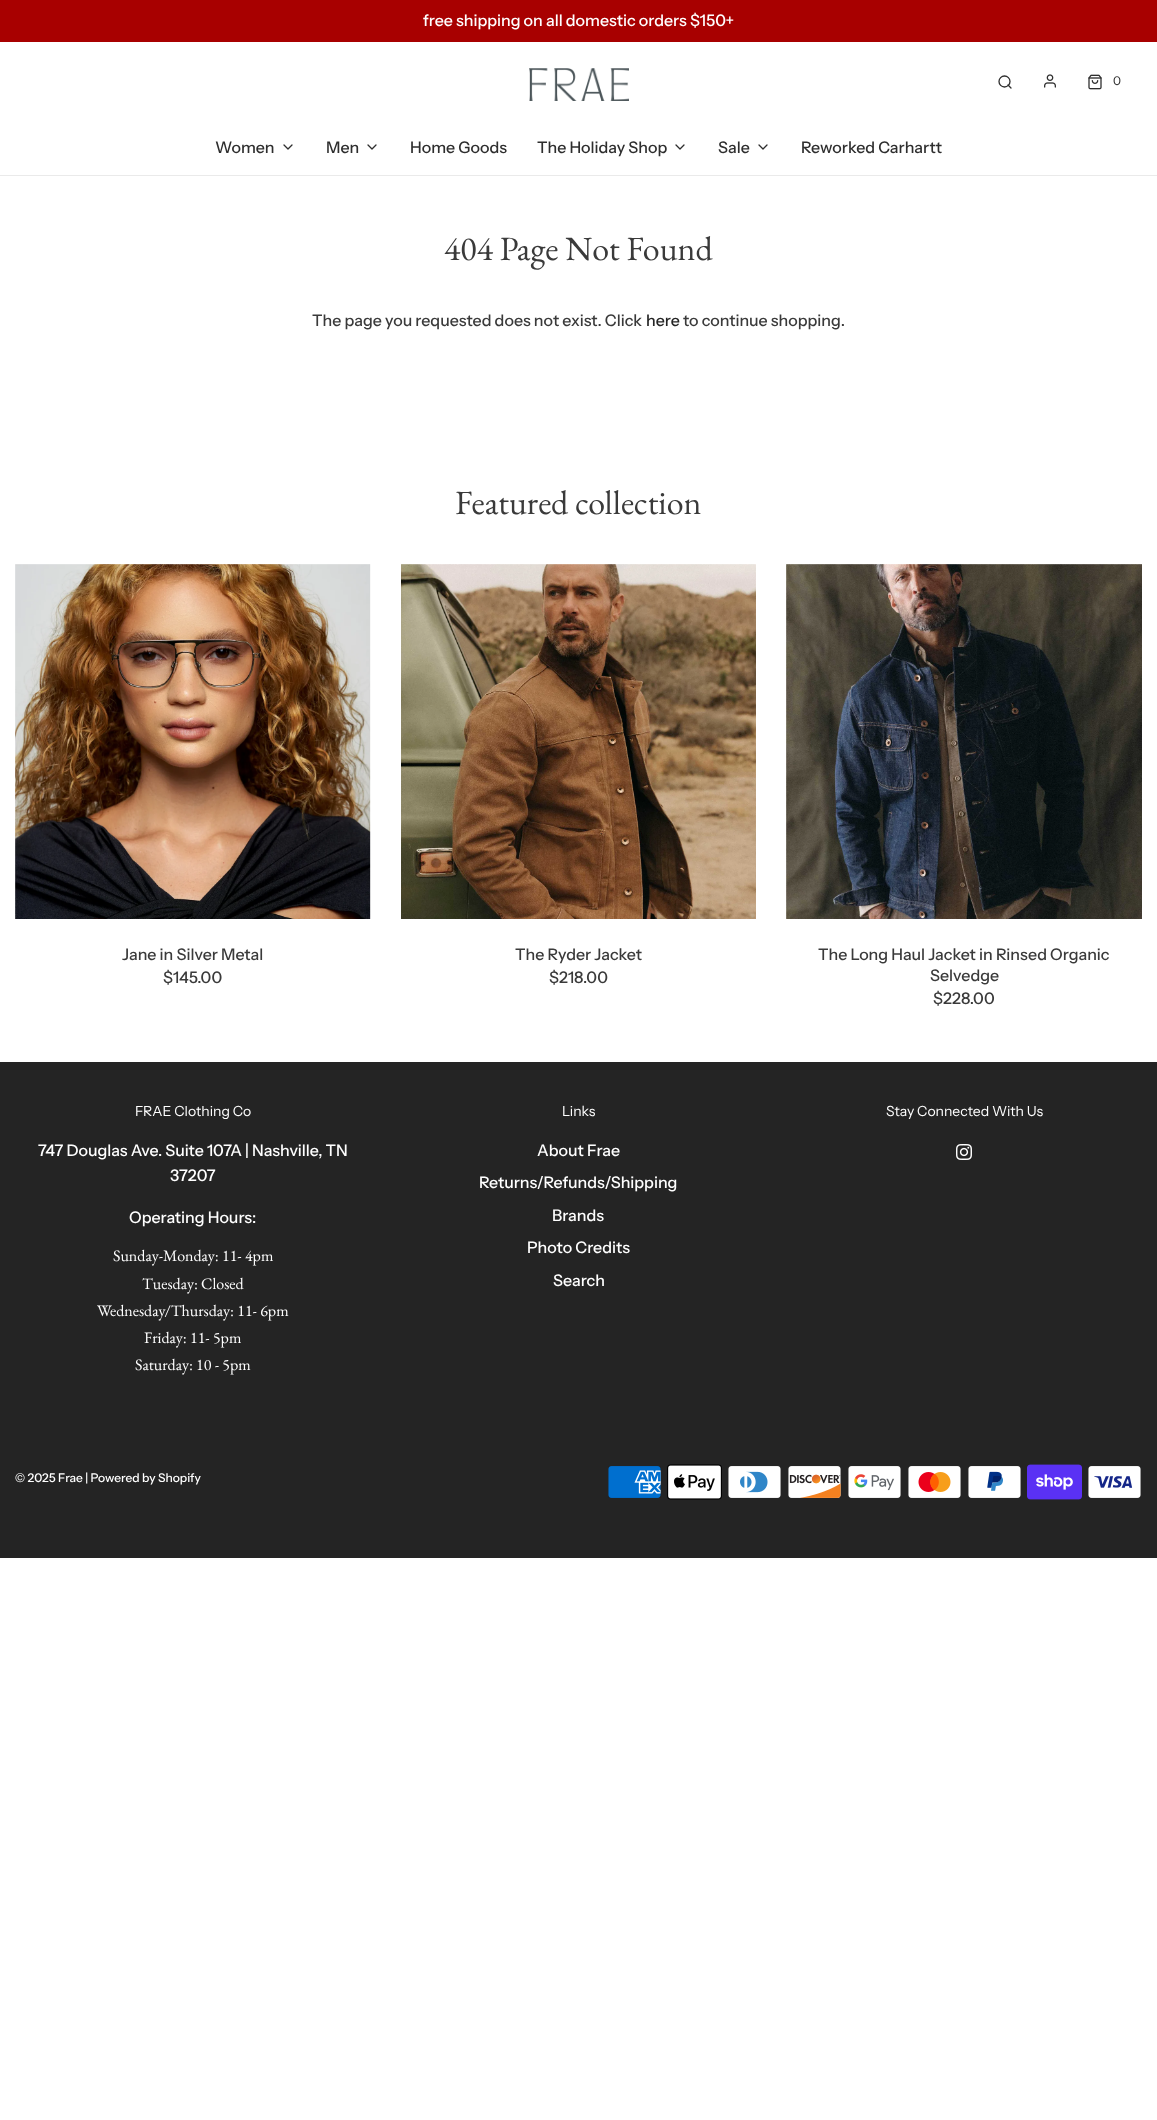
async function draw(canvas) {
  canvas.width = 1157
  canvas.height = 2120
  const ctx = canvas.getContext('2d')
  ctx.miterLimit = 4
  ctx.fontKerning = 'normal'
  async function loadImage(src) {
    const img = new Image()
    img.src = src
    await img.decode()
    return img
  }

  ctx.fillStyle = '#fff'
  ctx.fillRect(0, 0, 1157, 2120)
  ctx.fillStyle = '#a80000'
  ctx.fillRect(0, 0, 1157, 42)
  ctx.font = '500 16px Instrument Sans'
  ctx.fillStyle = '#fff'
  ctx.fillText('free shipping on all domestic orders $150+', 423, 26)
  ctx.fillStyle = '#eaeaea'
  ctx.fillRect(0, 175, 1157, 1)
  ctx.drawImage(await loadImage('image0.png'), 529, 68, 100, 33)
  ctx.beginPath()
  ctx.arc(1004.5, 81.5, 5.5, 0, 2 * Math.PI)
  ctx.strokeStyle = '#2e2e2e'
  ctx.lineWidth = 1.3
  ctx.stroke()
  ctx.beginPath()
  ctx.moveTo(1011, 88)
  ctx.lineTo(1008, 85)
  ctx.lineCap = 'round'
  ctx.lineJoin = 'round'
  ctx.stroke()
  ctx.drawImage(await loadImage('image1.png'), 1044, 74, 12, 14)
  ctx.drawImage(await loadImage('image2.png'), 1088, 74, 14, 16)
  ctx.font = '12px Instrument Sans'
  ctx.fillStyle = '#2e2e2e'
  ctx.fillText('0', 1113, 85)
  ctx.font = '500 16px Instrument Sans'
  ctx.fillText('Women', 215, 153)
  ctx.beginPath()
  ctx.moveTo(284, 145)
  ctx.lineTo(288, 149)
  ctx.lineTo(292, 145)
  ctx.stroke()
  ctx.fillText('Men', 326, 153)
  ctx.beginPath()
  ctx.moveTo(368, 145)
  ctx.lineTo(372, 149)
  ctx.lineTo(376, 145)
  ctx.stroke()
  ctx.fillText('Home Goods', 410, 153)
  ctx.fillText('The Holiday Shop', 537, 153)
  ctx.beginPath()
  ctx.moveTo(676, 145)
  ctx.lineTo(680, 149)
  ctx.lineTo(684, 145)
  ctx.stroke()
  ctx.fillText('Sale', 718, 153)
  ctx.beginPath()
  ctx.moveTo(759, 145)
  ctx.lineTo(763, 149)
  ctx.lineTo(767, 145)
  ctx.stroke()
  ctx.fillText('Reworked Carhartt', 801, 153)
  ctx.font = '34px EB Garamond'
  ctx.fillStyle = '#3a3a3a'
  ctx.fillText('404 Page Not Found', 444, 260)
  ctx.font = '500 16px Instrument Sans'
  ctx.fillText('The page you requested does not exist. Click', 312, 326)
  ctx.fillStyle = '#242424'
  ctx.fillText('here', 646, 326)
  ctx.fillStyle = '#3a3a3a'
  ctx.fillText('to continue shopping.', 683, 326)
  ctx.font = '34px EB Garamond'
  ctx.fillText('Featured collection', 455, 514)
  ctx.drawImage(await loadImage('image3.png'), 15, 564, 356, 355)
  ctx.font = '500 16px Instrument Sans'
  ctx.fillText('Jane in Silver Metal', 122, 960)
  ctx.fillText('$145.00', 163, 983)
  ctx.drawImage(await loadImage('image4.png'), 401, 564, 355, 355)
  ctx.fillText('The Ryder Jacket', 515, 960)
  ctx.fillText('$218.00', 549, 983)
  ctx.drawImage(await loadImage('image5.png'), 786, 564, 356, 355)
  ctx.fillText('The Long Haul Jacket in Rinsed Organic', 818, 960)
  ctx.fillText('Selvedge', 930, 981)
  ctx.fillText('$228.00', 933, 1004)
  ctx.fillStyle = '#242424'
  ctx.fillRect(0, 1062, 1157, 496)
  ctx.font = '14px Instrument Sans'
  ctx.fillStyle = '#fff'
  ctx.fillText('FRAE Clothing Co', 135, 1116)
  ctx.font = '500 16px Instrument Sans'
  ctx.fillText('747 Douglas Ave. Suite 107A | Nashville, TN', 38, 1156)
  ctx.fillText('37207', 170, 1181)
  ctx.fillText('Operating Hours:', 129, 1223)
  ctx.font = '16px EB Garamond'
  ctx.fillText('Sunday-Monday: 11- 4pm', 113, 1261)
  ctx.fillText('Tuesday: Closed', 142, 1289)
  ctx.fillText('Wednesday/Thursday: 11- 6pm', 97, 1316)
  ctx.fillText('Friday: 11- 5pm', 144, 1343)
  ctx.fillText('Saturday: 10 - 5pm', 135, 1370)
  ctx.font = '14px Instrument Sans'
  ctx.fillText('Links', 562, 1116)
  ctx.font = '500 16px Instrument Sans'
  ctx.fillText('About Frae', 537, 1156)
  ctx.fillText('Returns/Refunds/Shipping', 479, 1188)
  ctx.fillText('Brands', 552, 1221)
  ctx.fillText('Photo Credits', 527, 1253)
  ctx.fillText('Search', 553, 1286)
  ctx.font = '14px Instrument Sans'
  ctx.fillText('Stay Connected With Us', 886, 1116)
  ctx.drawImage(await loadImage('image6.png'), 956, 1144, 16, 16)
  ctx.font = '500 12px Instrument Sans'
  ctx.fillText('© 2025 Frae | Powered by Shopify', 15, 1482)
  ctx.drawImage(await loadImage('image7.png'), 608, 1466, 53, 32)
  ctx.drawImage(await loadImage('image8.png'), 667, 1464, 55, 36)
  ctx.drawImage(await loadImage('image9.png'), 728, 1466, 53, 32)
  ctx.drawImage(await loadImage('image10.png'), 788, 1466, 53, 32)
  ctx.drawImage(await loadImage('image11.png'), 848, 1466, 53, 32)
  ctx.drawImage(await loadImage('image12.png'), 908, 1466, 53, 32)
  ctx.drawImage(await loadImage('image13.png'), 968, 1466, 53, 32)
  ctx.drawImage(await loadImage('image14.png'), 1027, 1464, 55, 36)
  ctx.drawImage(await loadImage('image15.png'), 1088, 1466, 53, 32)
}

draw(document.querySelector('canvas'))
